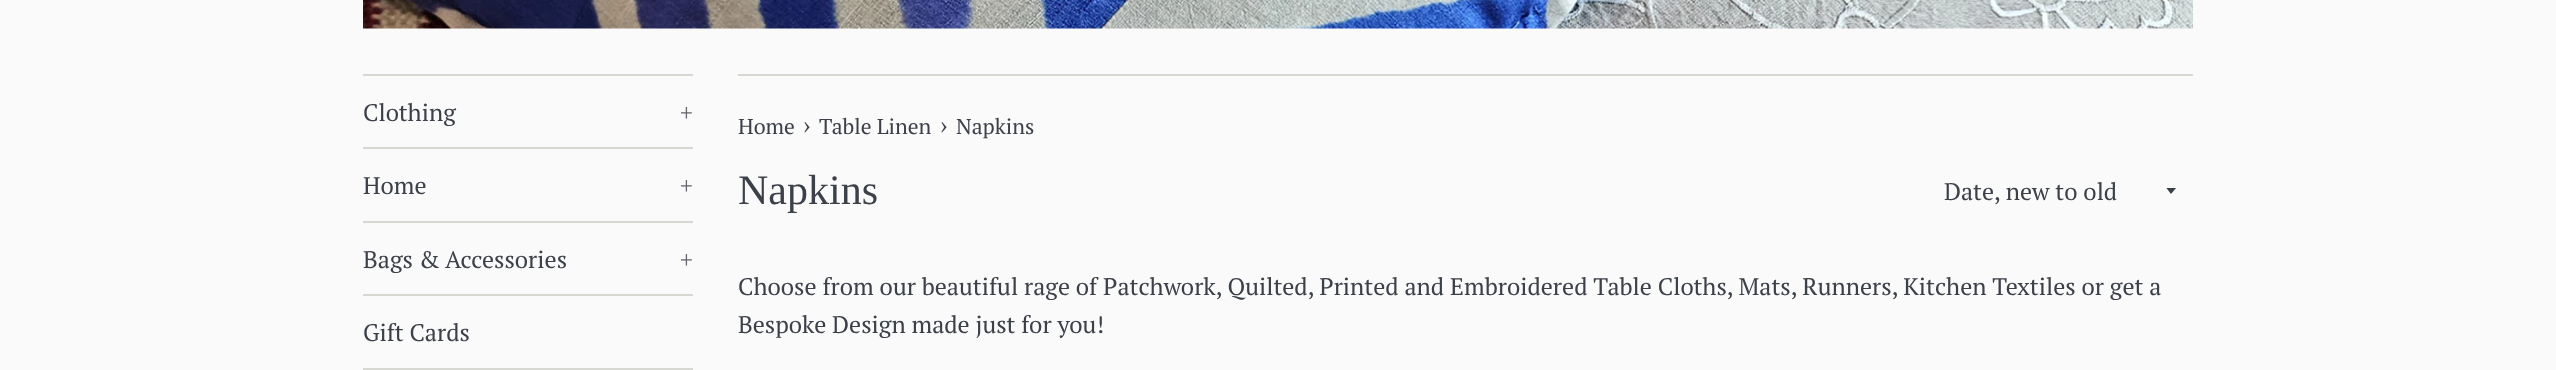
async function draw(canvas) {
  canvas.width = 2556
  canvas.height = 370
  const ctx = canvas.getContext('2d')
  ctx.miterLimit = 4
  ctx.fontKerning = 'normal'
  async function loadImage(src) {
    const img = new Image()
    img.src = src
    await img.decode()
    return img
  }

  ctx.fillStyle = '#fafafa'
  ctx.fillRect(0, 0, 2556, 370)
  ctx.drawImage(await loadImage('image0.png'), 363, 0, 1830, 29)
  ctx.fillStyle = '#d7d8d2'
  ctx.fillRect(363, 74, 330, 2)
  ctx.fillRect(363, 147, 330, 2)
  ctx.font = '24px PT Serif'
  ctx.fillStyle = '#3c4049'
  ctx.fillText('Clothing', 363, 121)
  ctx.fillStyle = '#62656c'
  ctx.fillText('+', 680, 121)
  ctx.fillStyle = '#d7d8d2'
  ctx.fillRect(363, 221, 330, 2)
  ctx.fillStyle = '#3c4049'
  ctx.fillText('Home', 363, 194)
  ctx.fillStyle = '#62656c'
  ctx.fillText('+', 680, 194)
  ctx.fillStyle = '#d7d8d2'
  ctx.fillRect(363, 294, 330, 2)
  ctx.fillStyle = '#3c4049'
  ctx.fillText('Bags & Accessories', 363, 268)
  ctx.fillStyle = '#62656c'
  ctx.fillText('+', 680, 268)
  ctx.fillStyle = '#d7d8d2'
  ctx.fillRect(363, 368, 330, 2)
  ctx.fillStyle = '#3c4049'
  ctx.fillText('Gift Cards', 363, 341)
  ctx.fillStyle = '#d7d8d2'
  ctx.fillRect(738, 74, 1455, 2)
  ctx.font = '21.5px PT Serif'
  ctx.fillStyle = '#3c4049'
  ctx.fillText('Home', 738, 134)
  ctx.font = '26px PT Serif'
  ctx.fillText('›', 803, 134)
  ctx.font = '21.5px PT Serif'
  ctx.fillText('Table Linen', 819, 134)
  ctx.font = '26px PT Serif'
  ctx.fillText('›', 940, 134)
  ctx.font = '21.5px PT Serif'
  ctx.fillText('Napkins', 956, 134)
  ctx.font = '42px Liberation Serif'
  ctx.fillText('Napkins', 738, 204)
  ctx.save()
  ctx.beginPath()
  ctx.rect(2166, 188, 12, 7)
  ctx.clip()
  ctx.beginPath()
  ctx.moveTo(2166, 187.5)
  ctx.lineTo(2171, 194)
  ctx.lineTo(2176.5, 187.5)
  ctx.closePath()
  ctx.fill()
  ctx.restore()
  ctx.font = '24px PT Serif'
  ctx.fillText('Date, new to old', 1944, 200)
  ctx.fillText('Choose from our beautiful rage of Patchwork, Quilted, Printed and Embroidered Table Cloths, Mats, Runners, Kitchen Textiles or get a', 738, 295)
  ctx.fillText('Bespoke Design made just for you!', 738, 333)
}

draw(document.querySelector('canvas'))
